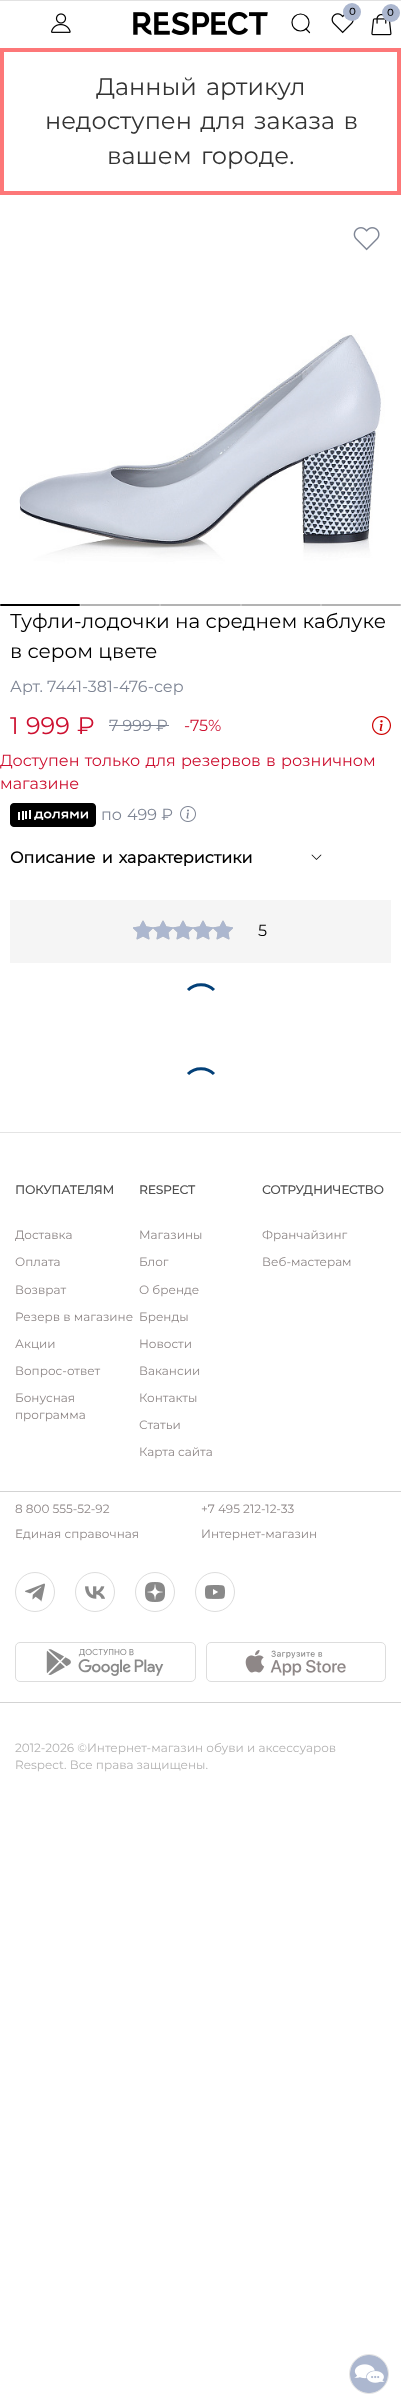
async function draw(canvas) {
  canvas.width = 401
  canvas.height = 2406
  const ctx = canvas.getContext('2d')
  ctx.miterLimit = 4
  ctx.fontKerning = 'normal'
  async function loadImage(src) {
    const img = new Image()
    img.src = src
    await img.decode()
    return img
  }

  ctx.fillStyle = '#fff'
  ctx.fillRect(0, 0, 401, 2406)
  ctx.fillStyle = '#e2e2e2'
  ctx.fillRect(0, 0, 401, 1)
  ctx.drawImage(await loadImage('image0.png'), 51, 13, 20, 20)
  ctx.drawImage(await loadImage('image1.png'), 133, 12, 135, 23)
  ctx.beginPath()
  ctx.arc(300.5, 22.5, 8.5, 0, 2 * Math.PI)
  ctx.strokeStyle = '#000'
  ctx.lineWidth = 1.2
  ctx.stroke()
  ctx.beginPath()
  ctx.moveTo(306, 29)
  ctx.lineTo(309.5, 32.5)
  ctx.lineCap = 'round'
  ctx.stroke()
  ctx.drawImage(await loadImage('image2.png'), 331, 13, 23, 21)
  ctx.fillStyle = '#acb7cf'
  ctx.beginPath()
  ctx.arc(352, 12, 9, 0, 2 * Math.PI)
  ctx.fill()
  ctx.font = 'bold 10px Montserrat'
  ctx.fillStyle = '#000'
  ctx.fillText('0', 349, 15)
  ctx.drawImage(await loadImage('image3.png'), 371, 13, 21, 23)
  ctx.fillStyle = '#acb7cf'
  ctx.beginPath()
  ctx.arc(391, 13, 9, 0, 2 * Math.PI)
  ctx.fill()
  ctx.fillStyle = '#000'
  ctx.fillText('0', 387, 16)
  ctx.strokeStyle = '#fd7778'
  ctx.lineWidth = 4
  ctx.strokeRect(2, 50, 397, 143)
  ctx.wordSpacing = '3px'
  ctx.font = '24px Montserrat'
  ctx.fillStyle = '#333'
  ctx.fillText('Данный артикул', 96, 95)
  ctx.wordSpacing = '2px'
  ctx.fillText('недоступен для заказа в', 45, 129)
  ctx.wordSpacing = '3px'
  ctx.fillText('вашем городе.', 107, 164)
  ctx.drawImage(await loadImage('image4.png'), 0, 205, 401, 401)
  ctx.fillStyle = '#000'
  ctx.beginPath()
  ctx.roundRect(0, 604, 80, 2, 1)
  ctx.fill()
  ctx.fillStyle = '#b3b3b3'
  ctx.beginPath()
  ctx.roundRect(80, 604, 80, 2, 1)
  ctx.fill()
  ctx.beginPath()
  ctx.roundRect(160, 604, 81, 2, 1)
  ctx.fill()
  ctx.beginPath()
  ctx.roundRect(241, 604, 80, 2, 1)
  ctx.fill()
  ctx.beginPath()
  ctx.roundRect(321, 604, 80, 2, 1)
  ctx.fill()
  ctx.drawImage(await loadImage('image5.png'), 353, 227, 27, 24)
  ctx.wordSpacing = '0px'
  ctx.font = '20px Montserrat'
  ctx.fillStyle = '#000'
  ctx.fillText('Туфли-лодочки на среднем каблуке', 10, 628)
  ctx.fillText('в сером цвете', 10, 658)
  ctx.font = '16px Montserrat'
  ctx.fillStyle = '#7f8695'
  ctx.fillText('Арт. 7441-381-476-сер', 10, 692)
  ctx.wordSpacing = '1px'
  ctx.font = '24px Montserrat'
  ctx.fillStyle = '#cd1030'
  ctx.fillText('1 999 ₽', 10, 734)
  ctx.wordSpacing = '0px'
  ctx.font = '16px Montserrat'
  ctx.fillStyle = '#7f8695'
  ctx.fillText('7 999 ₽', 109, 731)
  ctx.fillRect(109, 725, 60, 1)
  ctx.fillStyle = '#cd1030'
  ctx.fillText('-75%', 184, 731)
  ctx.drawImage(await loadImage('image6.png'), 372, 716, 19, 19)
  ctx.wordSpacing = '1px'
  ctx.fillText('Доступен только для резервов в розничном', 0, 766)
  ctx.wordSpacing = '0px'
  ctx.fillText('магазине', 0, 789)
  ctx.drawImage(await loadImage('image7.png'), 10, 803, 86, 24)
  ctx.fillStyle = '#7f8695'
  ctx.fillText('по', 101, 820)
  ctx.fillText('499 ₽', 127, 820)
  ctx.drawImage(await loadImage('image8.png'), 180, 806, 16, 16)
  ctx.wordSpacing = '2px'
  ctx.font = 'bold 16px Montserrat'
  ctx.fillStyle = '#000'
  ctx.fillText('Описание и характеристики', 10, 863)
  ctx.drawImage(await loadImage('image9.png'), 311, 854, 11, 6)
  ctx.fillStyle = '#f5f5f5'
  ctx.fillRect(10, 900, 381, 63)
  ctx.drawImage(await loadImage('image10.png'), 133, 920, 20, 20)
  ctx.drawImage(await loadImage('image11.png'), 133, 920, 20, 20)
  ctx.drawImage(await loadImage('image10.png'), 153, 920, 20, 20)
  ctx.drawImage(await loadImage('image11.png'), 153, 920, 20, 20)
  ctx.drawImage(await loadImage('image10.png'), 173, 920, 20, 20)
  ctx.drawImage(await loadImage('image11.png'), 173, 920, 20, 20)
  ctx.drawImage(await loadImage('image10.png'), 193, 920, 20, 20)
  ctx.drawImage(await loadImage('image11.png'), 193, 920, 20, 20)
  ctx.drawImage(await loadImage('image10.png'), 213, 920, 20, 20)
  ctx.drawImage(await loadImage('image11.png'), 213, 920, 20, 20)
  ctx.wordSpacing = '0px'
  ctx.font = '16px Montserrat'
  ctx.fillStyle = '#000'
  ctx.fillText('5', 258, 936)
  ctx.beginPath()
  ctx.moveTo(188, 990)
  ctx.bezierCurveTo(195, 983, 207, 983, 214, 990)
  ctx.moveTo(188, 990)
  ctx.bezierCurveTo(195, 983, 207, 983, 214, 990)
  ctx.moveTo(188, 990)
  ctx.bezierCurveTo(195, 983, 207, 983, 214, 990)
  ctx.moveTo(188, 990)
  ctx.bezierCurveTo(195, 983, 207, 983, 214, 990)
  ctx.strokeStyle = '#034078'
  ctx.lineWidth = 3
  ctx.lineCap = 'butt'
  ctx.stroke()
  ctx.beginPath()
  ctx.moveTo(188, 1074)
  ctx.bezierCurveTo(195, 1067, 207, 1067, 214, 1074)
  ctx.moveTo(188, 1074)
  ctx.bezierCurveTo(195, 1067, 207, 1067, 214, 1074)
  ctx.moveTo(188, 1074)
  ctx.bezierCurveTo(195, 1067, 207, 1067, 214, 1074)
  ctx.moveTo(188, 1074)
  ctx.bezierCurveTo(195, 1067, 207, 1067, 214, 1074)
  ctx.stroke()
  ctx.fillStyle = '#e4e4e4'
  ctx.fillRect(0, 1132, 401, 1)
  ctx.fillStyle = '#d3d3d3'
  ctx.fillRect(0, 1702, 401, 1)
  ctx.fillRect(0, 1491, 401, 1)
  ctx.font = 'bold 12px Montserrat'
  ctx.fillStyle = '#4e4e4e'
  ctx.fillText('ПОКУПАТЕЛЯМ', 15, 1194)
  ctx.font = '12px Montserrat'
  ctx.fillStyle = '#8e8787'
  ctx.fillText('Доставка', 15, 1239)
  ctx.fillText('Оплата', 15, 1266)
  ctx.fillText('Возврат', 15, 1294)
  ctx.fillText('Резерв в магазине', 15, 1321)
  ctx.fillText('Акции', 15, 1348)
  ctx.fillText('Вопрос-ответ', 15, 1375)
  ctx.fillText('Бонусная', 15, 1402)
  ctx.fillText('программа', 15, 1419)
  ctx.font = 'bold 12px Montserrat'
  ctx.fillStyle = '#4e4e4e'
  ctx.fillText('RESPECT', 139, 1194)
  ctx.font = '12px Montserrat'
  ctx.fillStyle = '#8e8787'
  ctx.fillText('Магазины', 139, 1239)
  ctx.fillText('Блог', 139, 1266)
  ctx.fillText('О бренде', 139, 1294)
  ctx.fillText('Бренды', 139, 1321)
  ctx.fillText('Новости', 139, 1348)
  ctx.fillText('Вакансии', 139, 1375)
  ctx.fillText('Контакты', 139, 1402)
  ctx.fillText('Статьи', 139, 1429)
  ctx.fillText('Карта сайта', 139, 1456)
  ctx.font = 'bold 12px Montserrat'
  ctx.fillStyle = '#4e4e4e'
  ctx.fillText('СОТРУДНИЧЕСТВО', 262, 1194)
  ctx.font = '12px Montserrat'
  ctx.fillStyle = '#8e8787'
  ctx.fillText('Франчайзинг', 262, 1239)
  ctx.fillText('Веб-мастерам', 262, 1266)
  ctx.fillText('8 800 555-52-92', 15, 1513)
  ctx.fillText('Единая справочная', 15, 1538)
  ctx.fillText('+7 495 212-12-33', 201, 1513)
  ctx.fillText('Интернет-магазин', 201, 1538)
  ctx.drawImage(await loadImage('image12.png'), 25, 1583, 20, 19)
  ctx.beginPath()
  ctx.arc(35, 1592, 19.5, 0, 2 * Math.PI)
  ctx.strokeStyle = '#ddd'
  ctx.lineWidth = 1
  ctx.stroke()
  ctx.drawImage(await loadImage('image13.png'), 85, 1586, 20, 13)
  ctx.beginPath()
  ctx.arc(95, 1592, 19.5, 0, 2 * Math.PI)
  ctx.stroke()
  ctx.drawImage(await loadImage('image14.png'), 145, 1582, 20, 20)
  ctx.beginPath()
  ctx.arc(155, 1592, 19.5, 0, 2 * Math.PI)
  ctx.stroke()
  ctx.drawImage(await loadImage('image15.png'), 205, 1585, 20, 14)
  ctx.beginPath()
  ctx.arc(215, 1592, 19.5, 0, 2 * Math.PI)
  ctx.stroke()
  ctx.drawImage(await loadImage('image16.png'), 46, 1648, 118, 28)
  ctx.beginPath()
  ctx.roundRect(15.5, 1642.5, 180, 39, 4.5)
  ctx.stroke()
  ctx.drawImage(await loadImage('image17.png'), 245, 1650, 101, 26)
  ctx.beginPath()
  ctx.roundRect(206.5, 1642.5, 179, 39, 4.5)
  ctx.stroke()
  ctx.fillStyle = '#b3b2b2'
  ctx.fillText('2012-2026 ©Интернет-магазин обуви и аксессуаров', 15, 1752)
  ctx.fillText('Respect. Все права защищены.', 15, 1769)
  ctx.drawImage(await loadImage('image18.png'), 350, 2355, 38, 38)
  ctx.beginPath()
  ctx.arc(369, 2374, 19.5, 0, 2 * Math.PI)
  ctx.strokeStyle = '#c8c8c880'
  ctx.stroke()
}

draw(document.querySelector('canvas'))
